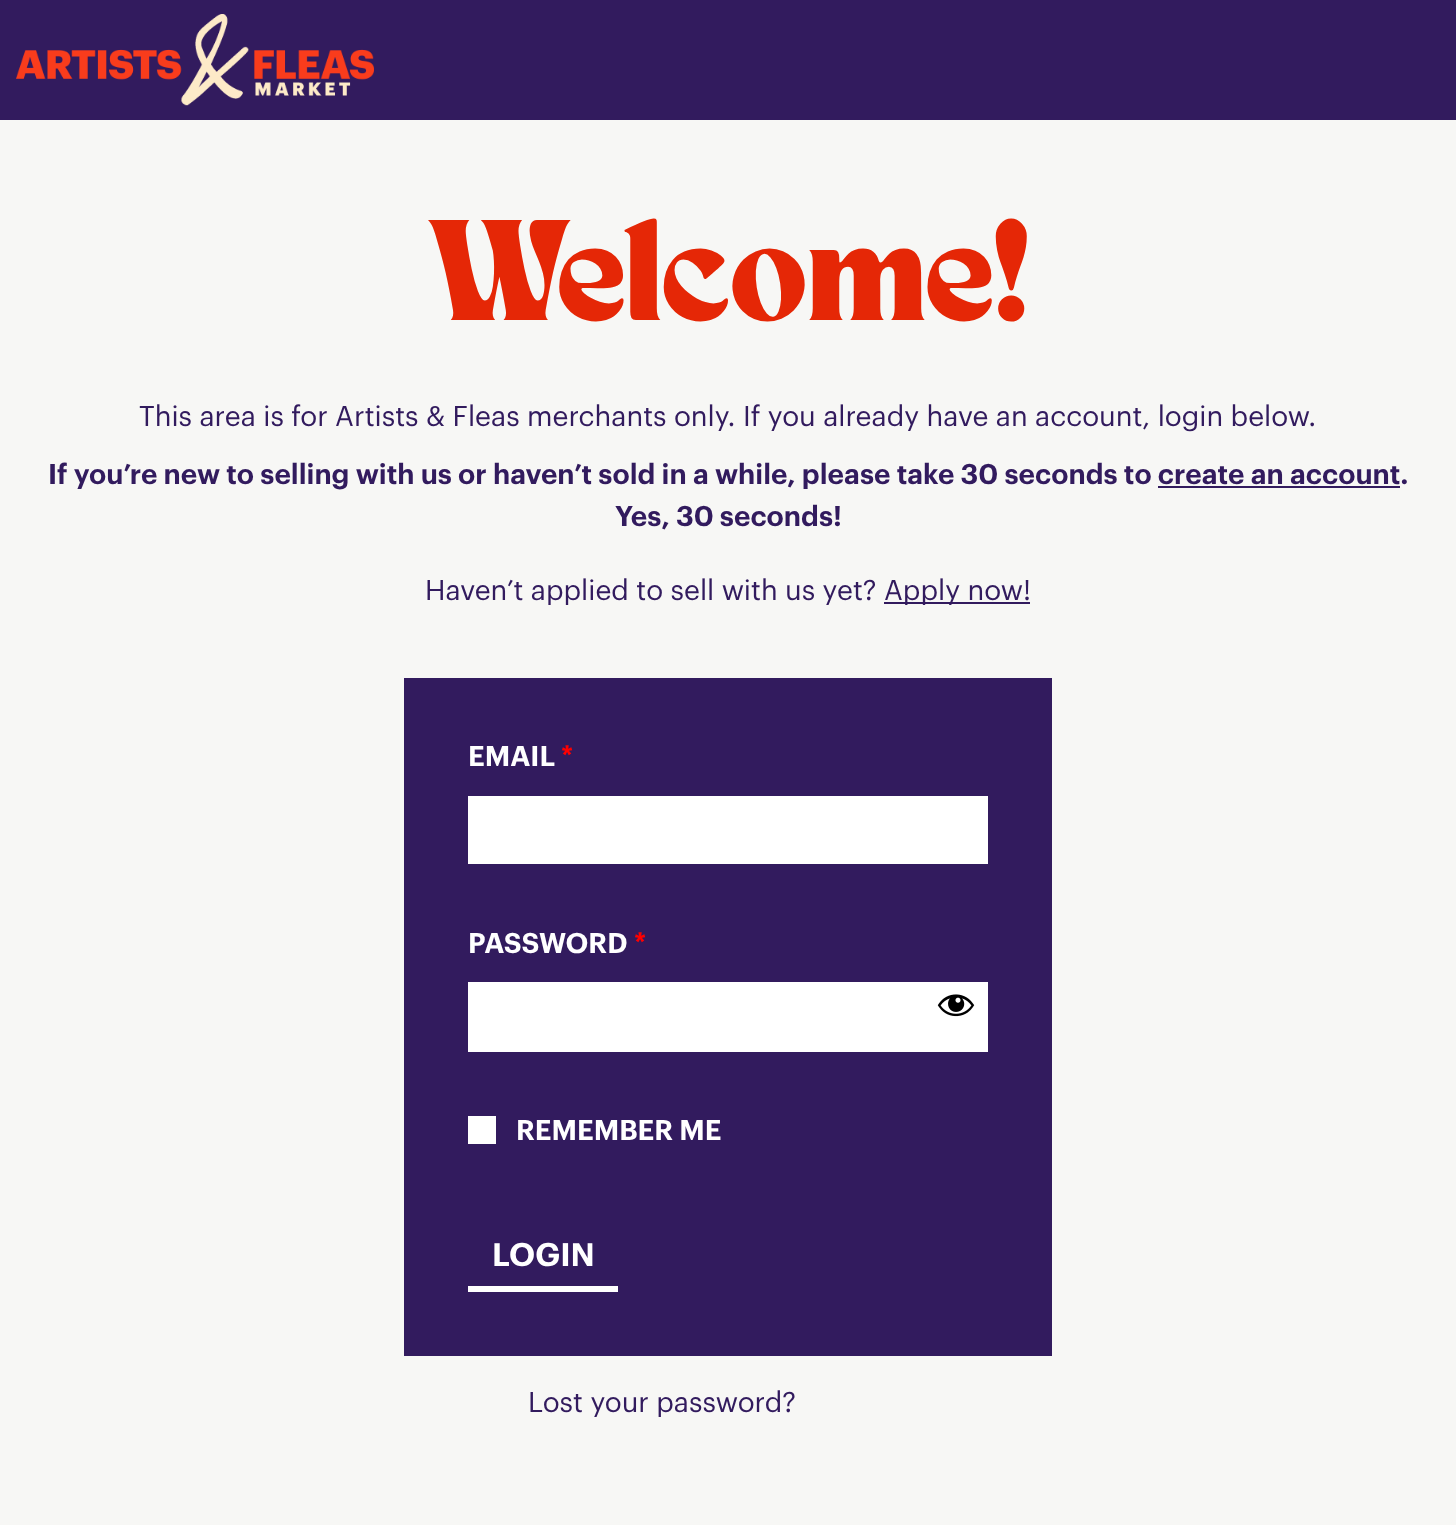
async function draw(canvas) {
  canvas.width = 1456
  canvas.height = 1525
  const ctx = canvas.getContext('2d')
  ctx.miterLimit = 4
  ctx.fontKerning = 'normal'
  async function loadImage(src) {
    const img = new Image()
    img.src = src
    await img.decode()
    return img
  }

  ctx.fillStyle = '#f7f7f5'
  ctx.fillRect(0, 0, 1456, 1525)
  ctx.fillStyle = '#321b5e'
  ctx.fillRect(0, 0, 1456, 120)
  ctx.drawImage(await loadImage('image0.png'), 16, 14, 358, 92)
  ctx.font = '100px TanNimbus'
  ctx.fillStyle = '#e52706'
  ctx.fillText('Welcome!', 428, 320)
  ctx.font = '28px Graphik'
  ctx.fillStyle = '#321b5e'
  ctx.fillText('This area is for Artists & Fleas merchants only. If you already have an account, login below.', 139, 426)
  ctx.font = '600 28px Graphik'
  ctx.fillText('If you’re new to selling with us or haven’t sold in a while, please take 30 seconds to create an account.', 48, 484)
  ctx.fillRect(1158, 486, 242, 2)
  ctx.fillText('Yes, 30 seconds!', 615, 526)
  ctx.font = '28px Graphik'
  ctx.fillText('Haven’t applied to sell with us yet?', 425, 600)
  ctx.fillRect(884, 602, 146, 2)
  ctx.fillText('Apply now!', 884, 600)
  ctx.fillRect(404, 678, 648, 678)
  ctx.font = '600 28px Graphik'
  ctx.fillStyle = '#fff'
  ctx.fillText('EMAIL', 468, 766)
  ctx.fillStyle = '#f00'
  ctx.fillText('*', 561, 766)
  ctx.fillStyle = '#fff'
  ctx.fillRect(468, 796, 520, 68)
  ctx.fillText('PASSWORD', 468, 953)
  ctx.fillStyle = '#f00'
  ctx.fillText('*', 634, 953)
  ctx.fillStyle = '#fff'
  ctx.fillRect(468, 982, 520, 70)
  ctx.drawImage(await loadImage('image1.png'), 937, 994, 38, 23)
  ctx.fillRect(468, 1116, 28, 28)
  ctx.fillText('REMEMBER ME', 516, 1140)
  ctx.font = '600 32px Graphik'
  ctx.fillText('LOGIN', 492, 1266)
  ctx.fillRect(468, 1286, 150, 6)
  ctx.font = '28px Graphik'
  ctx.fillStyle = '#321b5e'
  ctx.fillText('Lost your password?', 528, 1412)
}

draw(document.querySelector('canvas'))
